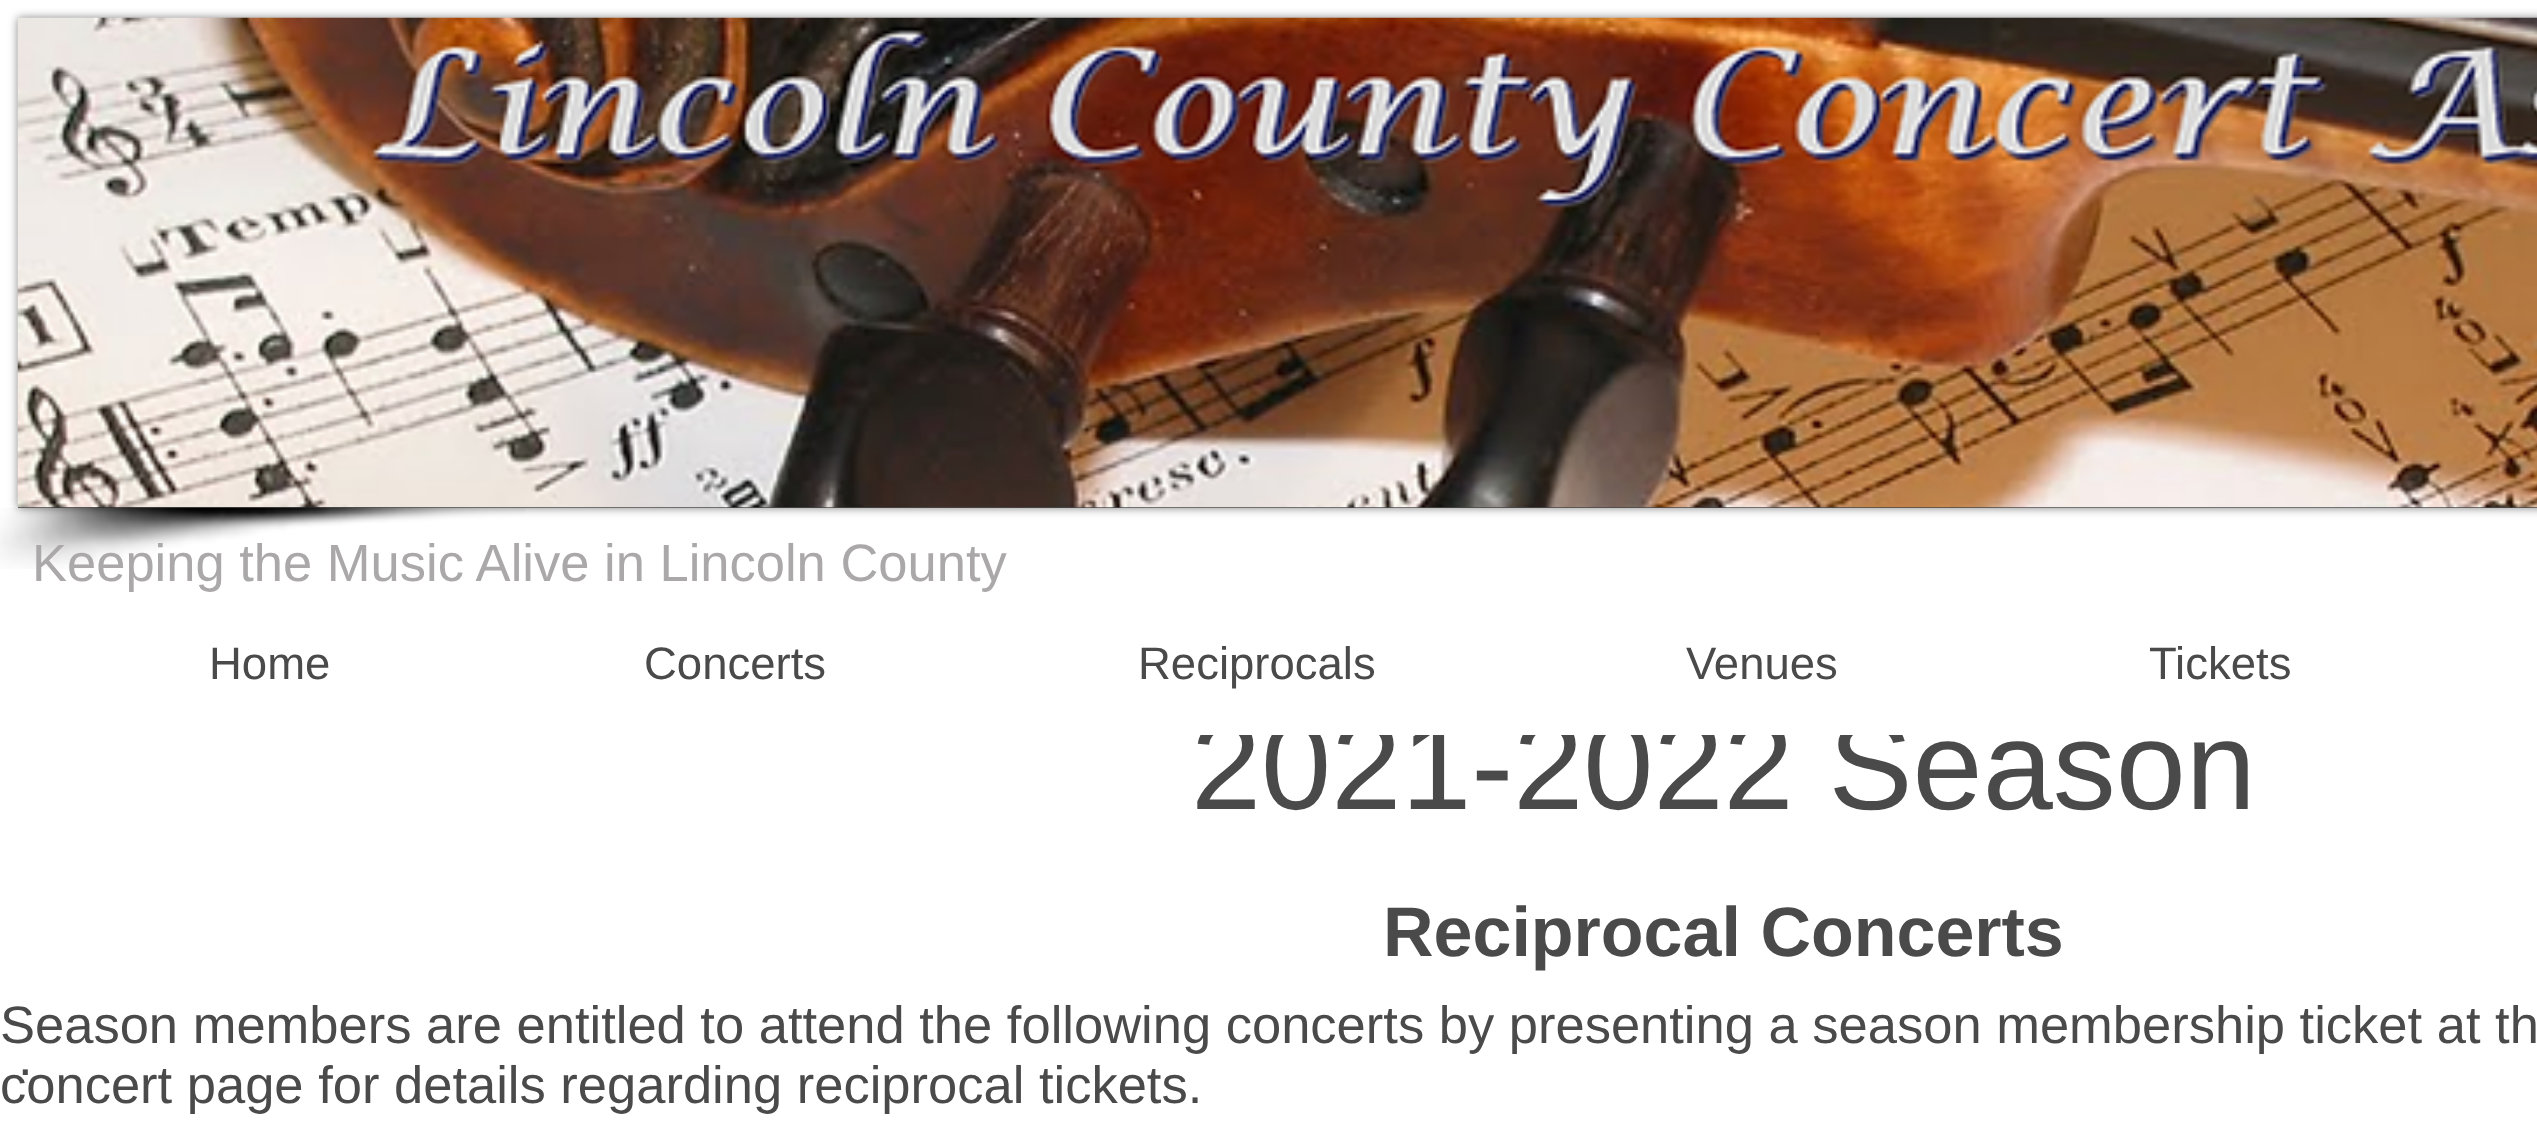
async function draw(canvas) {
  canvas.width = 2537
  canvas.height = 1146
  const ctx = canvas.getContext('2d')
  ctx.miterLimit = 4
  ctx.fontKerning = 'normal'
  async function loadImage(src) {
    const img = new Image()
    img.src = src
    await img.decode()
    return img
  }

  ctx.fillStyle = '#fff'
  ctx.fillRect(0, 0, 2537, 1146)
  ctx.fillStyle = '#00000080'
  ctx.filter = 'blur(5px)'
  ctx.beginPath()
  ctx.rect(18, 18, 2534, 490)
  ctx.fill()
  ctx.filter = 'none'
  ctx.fillStyle = '#4a4a4a'
  ctx.fillRect(18, 507, 2519, 1)
  ctx.drawImage(await loadImage('image0.png'), 17, 17, 2520, 491)
  ctx.drawImage(await loadImage('image1.png'), 0, 507, 525, 62)
  ctx.font = '52.5px Liberation Sans'
  ctx.fillStyle = '#aaa8a8'
  ctx.fillText('Keeping the Music Alive in Lincoln County', 32, 581)
  ctx.font = '126px Liberation Sans'
  ctx.fillStyle = '#4a4a4a'
  ctx.fillText('2021-2022 Season', 1191, 809)
  ctx.fillStyle = '#fff'
  ctx.fillRect(1200, 721, 703, 14)
  ctx.font = '45.5px Liberation Sans'
  ctx.fillStyle = '#4a4a4a'
  ctx.fillText('Home', 209, 679)
  ctx.fillText('Concerts', 644, 679)
  ctx.fillText('Reciprocals', 1138, 679)
  ctx.fillText('Venues', 1686, 679)
  ctx.fillText('Tickets', 2149, 679)
  ctx.font = 'bold 70px Liberation Sans'
  ctx.fillText('Reciprocal Concerts', 1383, 956)
  ctx.font = '52.5px Liberation Sans'
  ctx.fillText('.', 18, 1075)
  ctx.fillText('Season members are entitled to attend the following concerts by presenting a season membership ticket at th', 0, 1043)
  ctx.fillText('concert page for details regarding reciprocal tickets.', 0, 1103)
}

draw(document.querySelector('canvas'))
